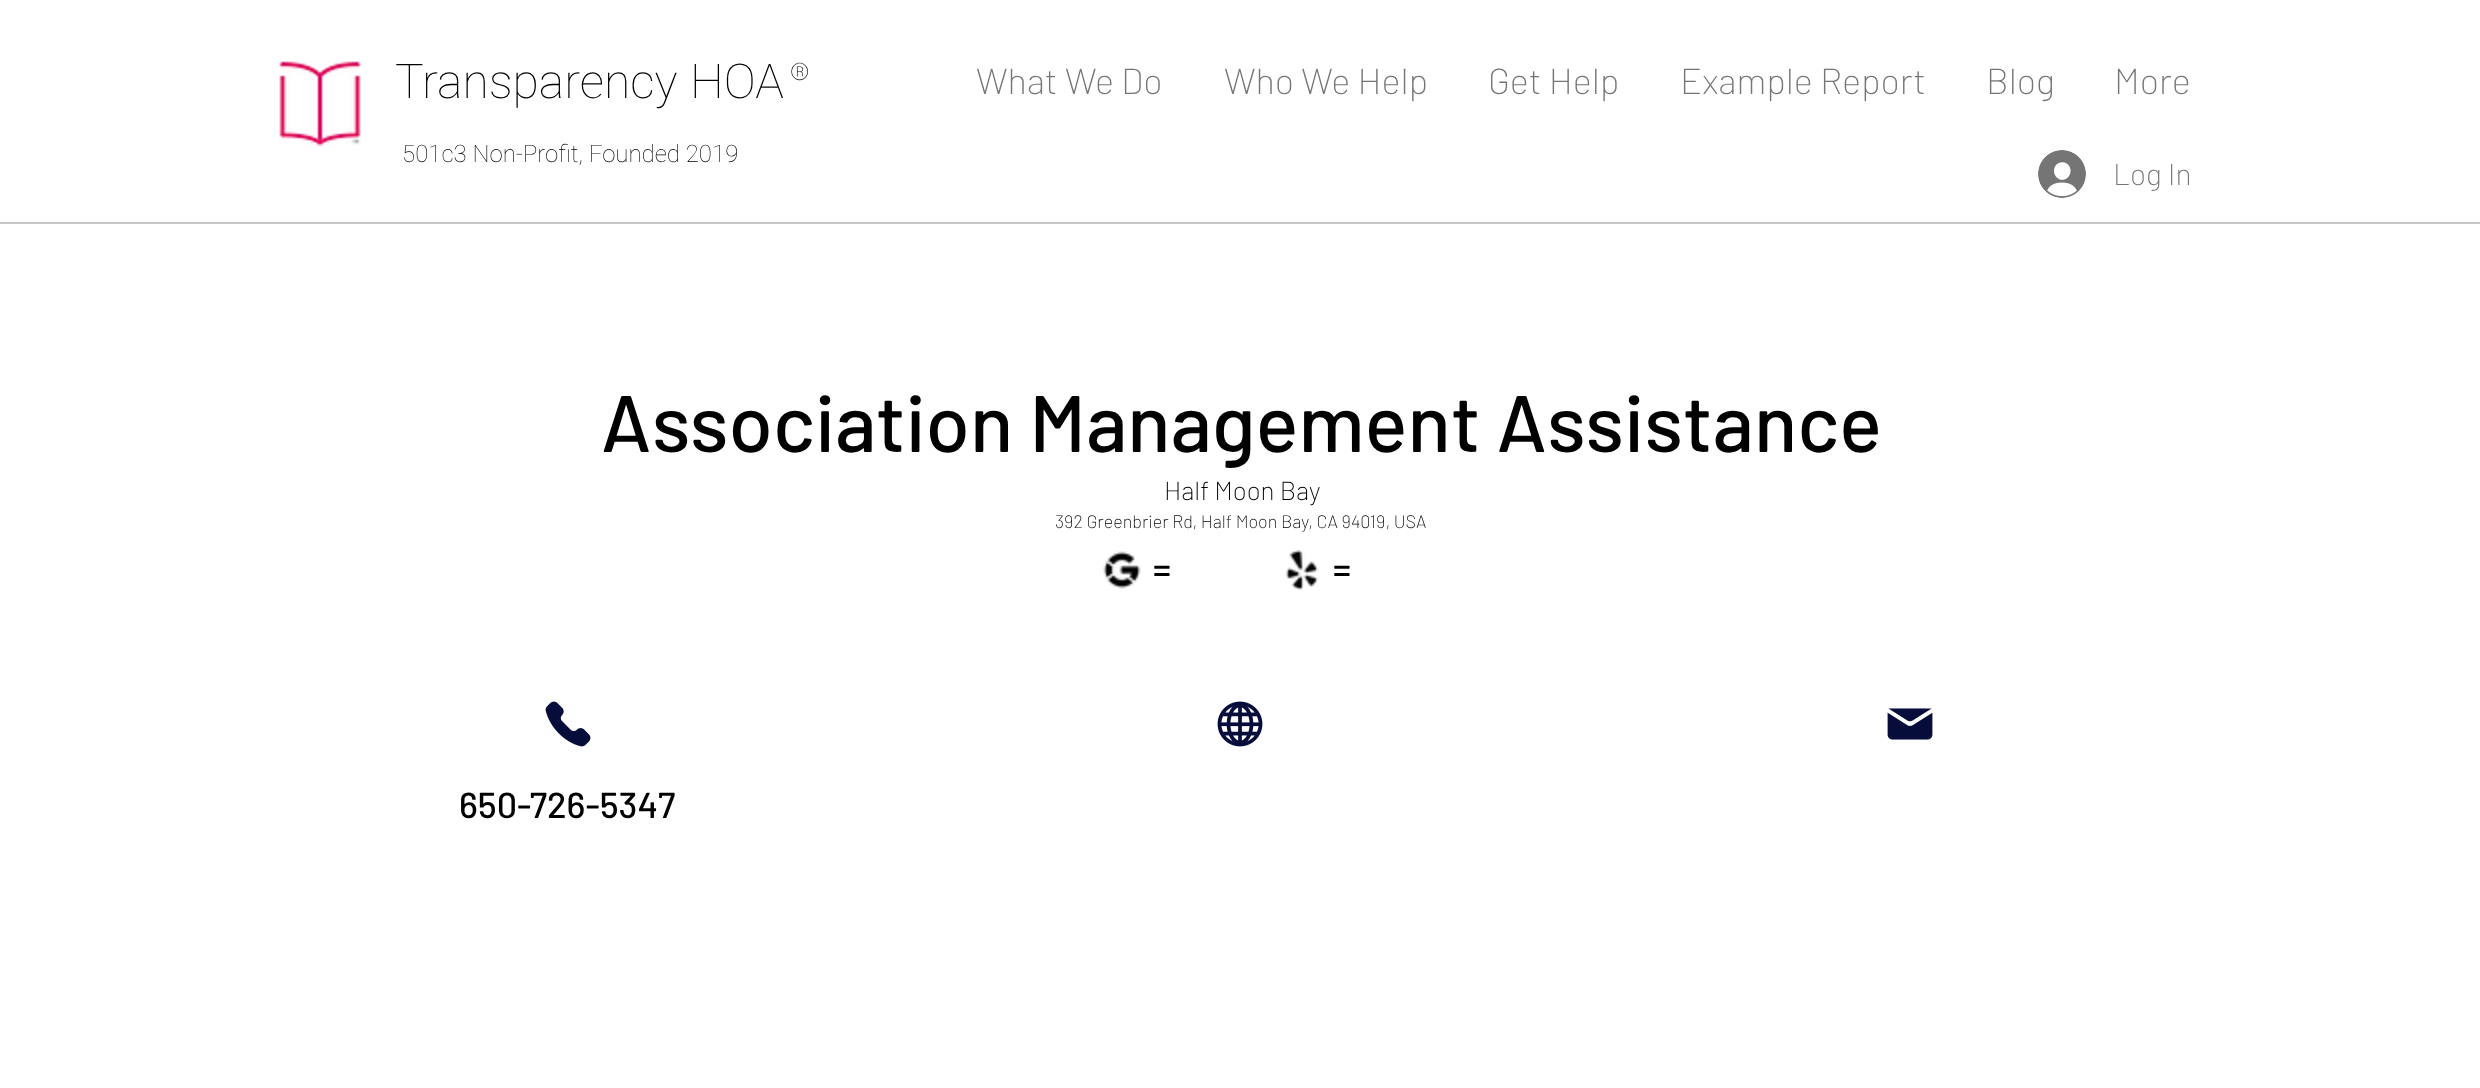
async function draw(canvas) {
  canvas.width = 2480
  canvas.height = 1088
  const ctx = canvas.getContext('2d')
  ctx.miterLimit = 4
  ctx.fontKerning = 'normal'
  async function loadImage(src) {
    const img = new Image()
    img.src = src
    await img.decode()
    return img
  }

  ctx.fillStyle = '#fff'
  ctx.fillRect(0, 0, 2480, 1088)
  ctx.drawImage(await loadImage('image0.png'), 279, 61, 82, 86)
  ctx.font = '100 48px Roboto'
  ctx.fillStyle = '#000'
  ctx.fillText('Transparency', 395, 98)
  ctx.fillText('HOA', 690, 98)
  ctx.font = '100 24px Roboto'
  ctx.fillText('®', 790, 80)
  ctx.font = '200 36px Barlow'
  ctx.fillStyle = '#757575'
  ctx.fillText('What We Do', 976, 94)
  ctx.fillText('Who We Help', 1224, 94)
  ctx.fillText('Get Help', 1488, 94)
  ctx.fillText('Example Report', 1680, 94)
  ctx.fillText('Blog', 1986, 94)
  ctx.fillText('More', 2114, 94)
  ctx.font = '100 24px Roboto'
  ctx.fillStyle = '#000'
  ctx.fillText('501c3 Non-Profit, Founded 2019', 402, 162)
  ctx.drawImage(await loadImage('image1.png'), 2038, 150, 48, 48)
  ctx.font = '200 30px Barlow'
  ctx.fillStyle = '#757575'
  ctx.fillText('Log In', 2113, 185)
  ctx.fillStyle = '#c7c7c7'
  ctx.fillRect(0, 222, 2480, 2)
  ctx.font = '500 80px Barlow'
  ctx.fillStyle = '#000'
  ctx.fillText('Association Management Assistance', 601, 452)
  ctx.font = '200 26px Barlow'
  ctx.fillText('Half Moon Bay', 1164, 500)
  ctx.font = '200 18px Barlow'
  ctx.fillText('392 Greenbrier Rd, Half Moon Bay, CA 94019, USA', 1055, 528)
  ctx.drawImage(await loadImage('image2.png'), 1103, 551, 38, 38)
  ctx.font = '500 36px Barlow'
  ctx.fillText('=', 1153, 582)
  ctx.drawImage(await loadImage('image3.png'), 1285, 550, 34, 40)
  ctx.fillText('=', 1333, 582)
  ctx.drawImage(await loadImage('image4.png'), 1217, 701, 46, 46)
  ctx.drawImage(await loadImage('image5.png'), 1887, 708, 46, 32)
  ctx.drawImage(await loadImage('image6.png'), 545, 701, 46, 46)
  ctx.fillText('650-726-5347', 459, 818)
}

draw(document.querySelector('canvas'))
